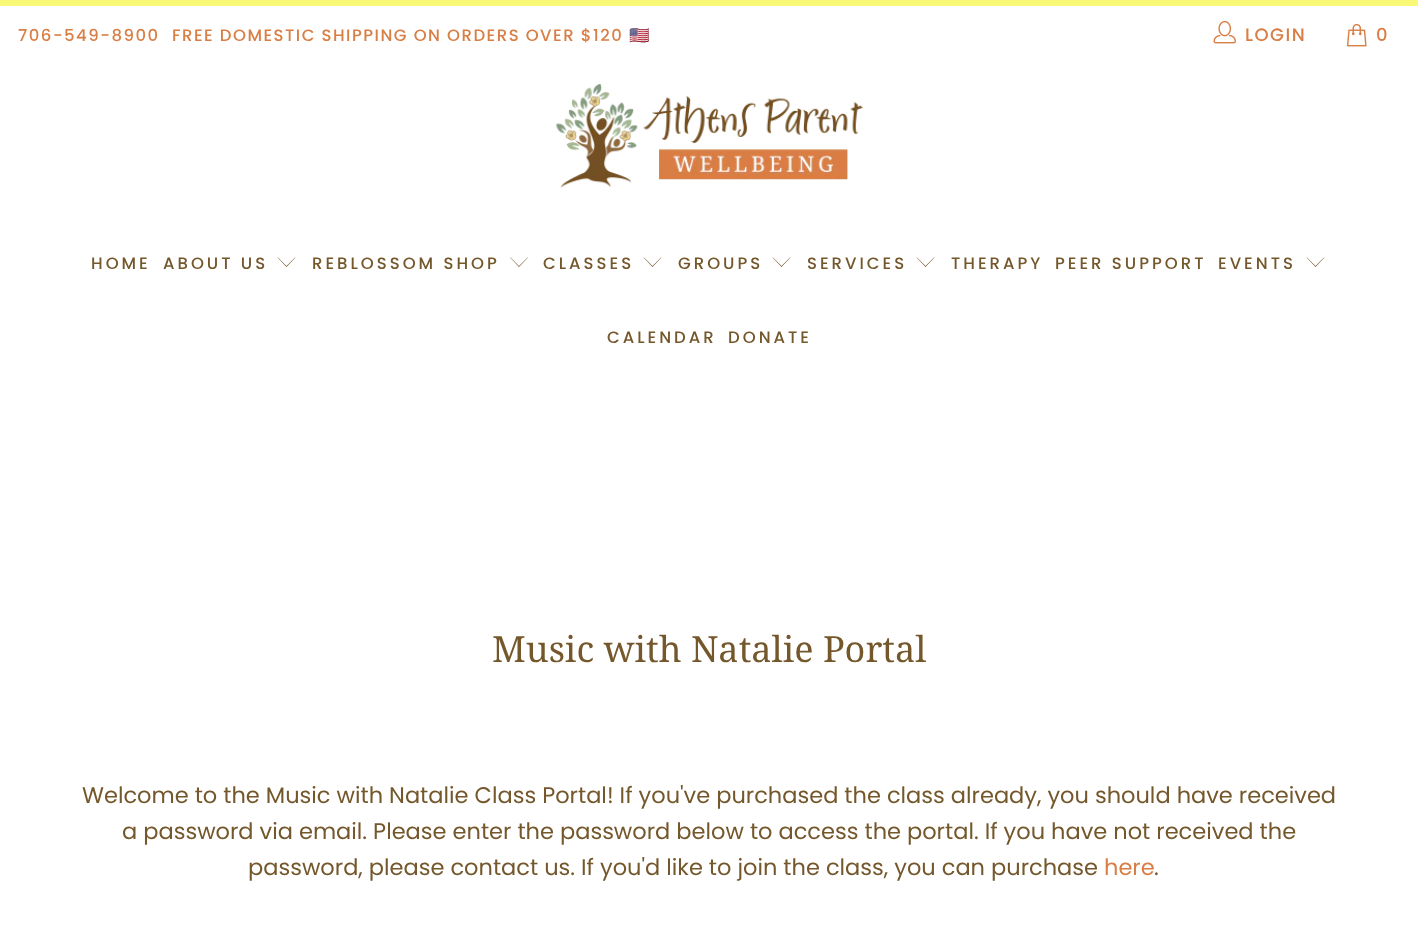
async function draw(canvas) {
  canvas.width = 1418
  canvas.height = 952
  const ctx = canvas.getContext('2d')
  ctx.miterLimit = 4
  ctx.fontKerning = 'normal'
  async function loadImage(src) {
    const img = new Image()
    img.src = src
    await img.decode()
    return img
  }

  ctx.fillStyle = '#fff'
  ctx.fillRect(0, 0, 1418, 952)
  ctx.fillStyle = '#f9f977'
  ctx.fillRect(0, 0, 1418, 6)
  ctx.letterSpacing = '1.5px'
  ctx.font = '500 16.5px Poppins'
  ctx.fillStyle = '#d97e44'
  ctx.fillText('706-549-8900', 18, 41)
  ctx.wordSpacing = '-0.25px'
  ctx.fillText('FREE DOMESTIC SHIPPING ON ORDERS OVER $120', 172, 41)
  ctx.wordSpacing = '0px'
  ctx.font = '16.5px Noto Color Emoji'
  ctx.fillText('🇺🇸', 629, 41)
  ctx.drawImage(await loadImage('image0.png'), 1213, 20, 23, 24)
  ctx.font = '500 18px Poppins'
  ctx.fillText('LOGIN', 1245, 41)
  ctx.drawImage(await loadImage('image1.png'), 1346, 23, 21, 24)
  ctx.fillText('0', 1376, 41)
  ctx.drawImage(await loadImage('image2.png'), 556, 84, 307, 104)
  ctx.letterSpacing = '3px'
  ctx.font = '500 16.5px Poppins'
  ctx.fillStyle = '#74572b'
  ctx.fillText('HOME', 91, 269)
  ctx.fillText('ABOUT US', 163, 269)
  ctx.beginPath()
  ctx.moveTo(286.5, 267)
  ctx.lineTo(277.5, 257.5)
  ctx.lineTo(278, 257.5)
  ctx.lineTo(286.5, 266)
  ctx.lineTo(295, 257.5)
  ctx.lineTo(295.5, 257.5)
  ctx.closePath()
  ctx.fill()
  ctx.fillText('REBLOSSOM SHOP', 312, 269)
  ctx.beginPath()
  ctx.moveTo(519, 267)
  ctx.lineTo(510, 257.5)
  ctx.lineTo(510.5, 257.5)
  ctx.lineTo(519, 266)
  ctx.lineTo(527.5, 257.5)
  ctx.lineTo(528, 257.5)
  ctx.closePath()
  ctx.fill()
  ctx.fillText('CLASSES', 543, 269)
  ctx.beginPath()
  ctx.moveTo(652.5, 267)
  ctx.lineTo(643.5, 257.5)
  ctx.lineTo(644, 257.5)
  ctx.lineTo(652.5, 266)
  ctx.lineTo(661, 257.5)
  ctx.lineTo(661.5, 257.5)
  ctx.closePath()
  ctx.fill()
  ctx.fillText('GROUPS', 678, 269)
  ctx.beginPath()
  ctx.moveTo(781.5, 267)
  ctx.lineTo(772.5, 257.5)
  ctx.lineTo(773, 257.5)
  ctx.lineTo(781.5, 266)
  ctx.lineTo(790, 257.5)
  ctx.lineTo(790.5, 257.5)
  ctx.closePath()
  ctx.fill()
  ctx.fillText('SERVICES', 807, 269)
  ctx.beginPath()
  ctx.moveTo(925.5, 267)
  ctx.lineTo(916.5, 257.5)
  ctx.lineTo(917, 257.5)
  ctx.lineTo(925.5, 266)
  ctx.lineTo(934, 257.5)
  ctx.lineTo(934.5, 257.5)
  ctx.closePath()
  ctx.fill()
  ctx.fillText('THERAPY', 951, 269)
  ctx.fillText('PEER SUPPORT', 1055, 269)
  ctx.fillText('EVENTS', 1218, 269)
  ctx.beginPath()
  ctx.moveTo(1315.5, 267)
  ctx.lineTo(1306.5, 257.5)
  ctx.lineTo(1307, 257.5)
  ctx.lineTo(1315.5, 266)
  ctx.lineTo(1324, 257.5)
  ctx.lineTo(1324.5, 257.5)
  ctx.closePath()
  ctx.fill()
  ctx.fillText('CALENDAR', 607, 343)
  ctx.fillText('DONATE', 728, 343)
  ctx.letterSpacing = '0px'
  ctx.font = '36px Noto Serif'
  ctx.fillText('Music with Natalie Portal', 492, 662)
  ctx.font = '22.5px Poppins'
  ctx.fillText('Welcome to the Music with Natalie Class Portal! If you\'ve purchased the class already, you should have received', 82, 803)
  ctx.fillText('a password via email. Please enter the password below to access the portal. If you have not received the', 122, 839)
  ctx.fillText('password, please contact us. If you\'d like to join the class, you can purchase', 248, 875)
  ctx.fillStyle = '#d97e44'
  ctx.fillText('here', 1104, 875)
  ctx.fillStyle = '#74572b'
  ctx.fillText('.', 1154, 875)
}

draw(document.querySelector('canvas'))
